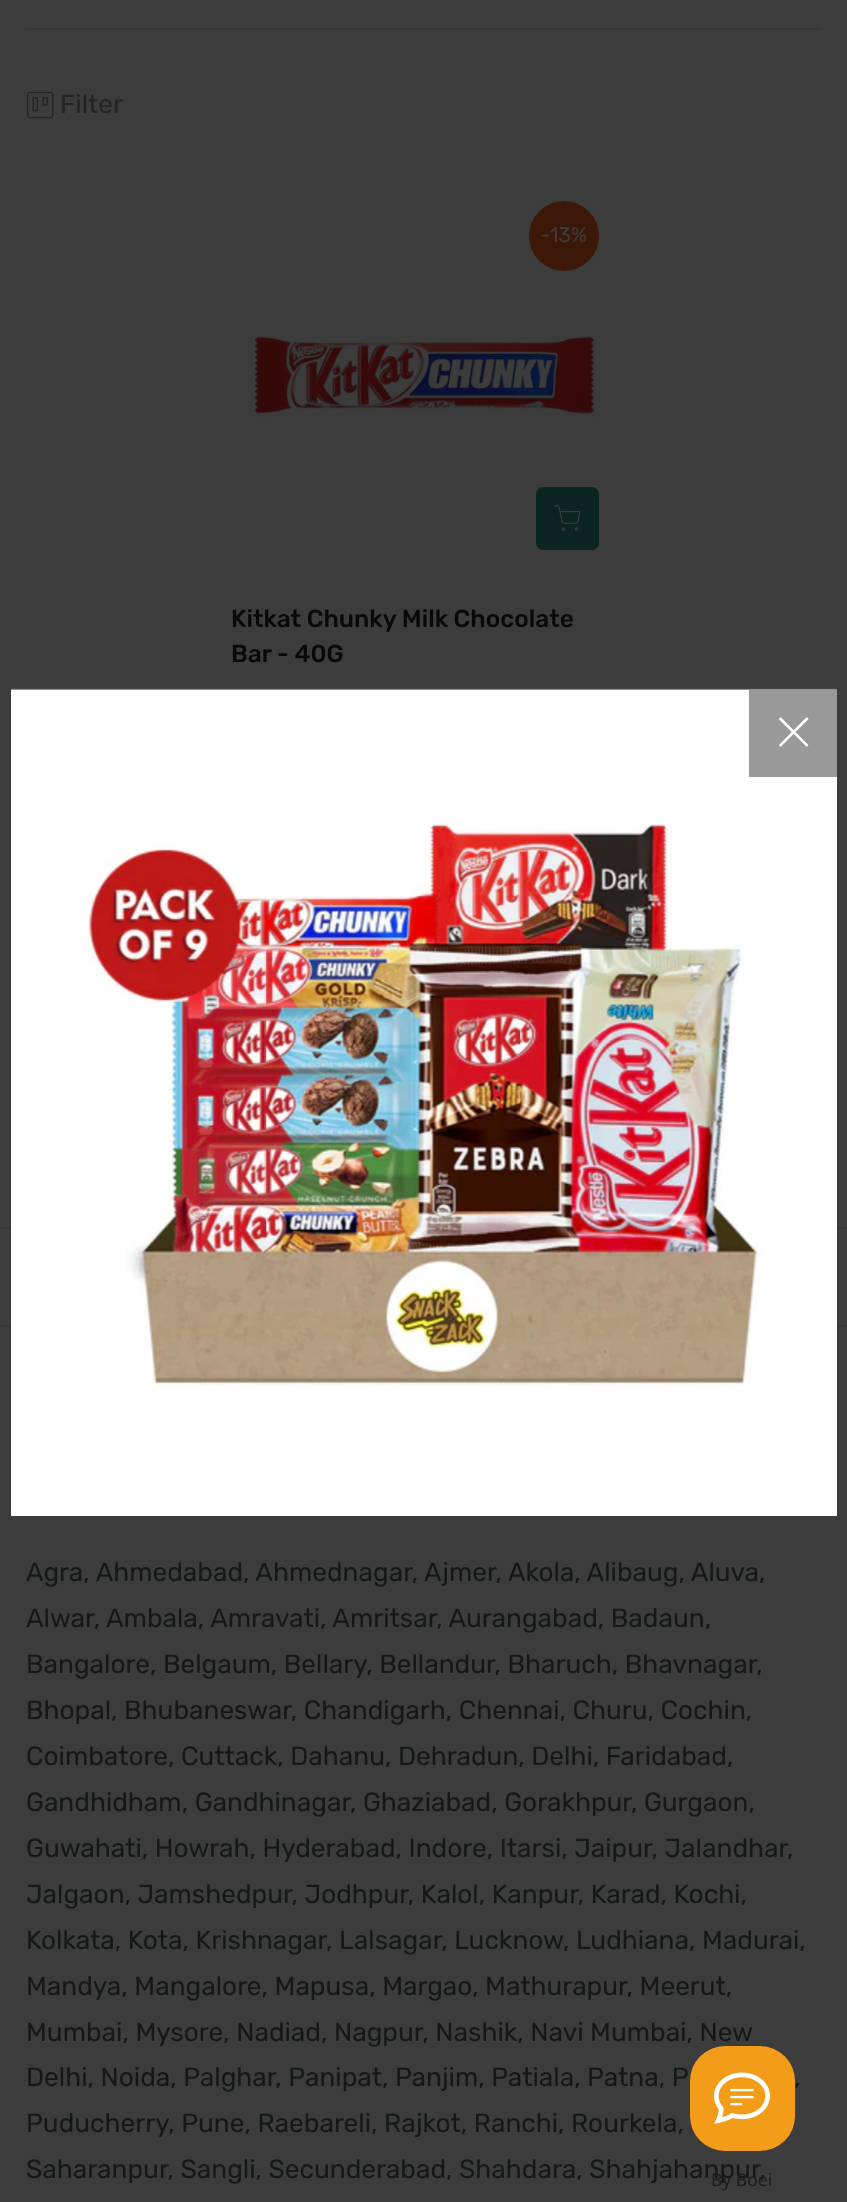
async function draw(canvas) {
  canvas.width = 847
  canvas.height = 2202
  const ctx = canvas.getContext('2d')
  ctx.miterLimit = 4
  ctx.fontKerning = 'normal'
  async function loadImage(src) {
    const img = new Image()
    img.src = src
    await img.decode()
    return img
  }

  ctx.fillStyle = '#3c3c3c'
  ctx.fillRect(0, 0, 847, 2202)
  ctx.fillStyle = '#373738'
  ctx.fillRect(26, 28, 795, 2)
  ctx.drawImage(await loadImage('image0.png'), 26, 91, 28, 28)
  ctx.font = '26.25px Rubik'
  ctx.fillStyle = '#242424'
  ctx.fillText('Filter', 60, 113)
  ctx.fillStyle = '#3c1809'
  ctx.beginPath()
  ctx.arc(564, 236, 35, 0, 2 * Math.PI)
  ctx.fill()
  ctx.font = '21px Rubik'
  ctx.fillStyle = '#3c3c3c'
  ctx.fillText('-13%', 540, 242)
  ctx.drawImage(await loadImage('image1.png'), 250, 336, 349, 81)
  ctx.fillStyle = '#0b2520'
  ctx.beginPath()
  ctx.roundRect(536, 487, 63, 63, 7)
  ctx.fill()
  ctx.drawImage(await loadImage('image2.png'), 553, 505, 28, 26)
  ctx.font = '500 24.5px Rubik'
  ctx.fillStyle = '#090909'
  ctx.fillText('Kitkat Chunky Milk Chocolate', 231, 627)
  ctx.fillText('Bar - 40G', 231, 662)
  ctx.fillStyle = '#373738'
  ctx.fillRect(0, 1227, 847, 2)
  ctx.fillRect(0, 1325, 847, 2)
  ctx.font = '26.25px Rubik'
  ctx.fillStyle = '#151819'
  ctx.fillText('Agra, Ahmedabad, Ahmednagar, Ajmer, Akola, Alibaug, Aluva,', 26, 1581)
  ctx.fillText('Alwar, Ambala, Amravati, Amritsar, Aurangabad, Badaun,', 26, 1627)
  ctx.fillText('Bangalore, Belgaum, Bellary, Bellandur, Bharuch, Bhavnagar,', 26, 1673)
  ctx.fillText('Bhopal, Bhubaneswar, Chandigarh, Chennai, Churu, Cochin,', 26, 1719)
  ctx.fillText('Coimbatore, Cuttack, Dahanu, Dehradun, Delhi, Faridabad,', 26, 1765)
  ctx.fillText('Gandhidham, Gandhinagar, Ghaziabad, Gorakhpur, Gurgaon,', 26, 1811)
  ctx.fillText('Guwahati, Howrah, Hyderabad, Indore, Itarsi, Jaipur, Jalandhar,', 26, 1857)
  ctx.fillText('Jalgaon, Jamshedpur, Jodhpur, Kalol, Kanpur, Karad, Kochi,', 26, 1903)
  ctx.fillText('Kolkata, Kota, Krishnagar, Lalsagar, Lucknow, Ludhiana, Madurai,', 26, 1949)
  ctx.fillText('Mandya, Mangalore, Mapusa, Margao, Mathurapur, Meerut,', 26, 1995)
  ctx.fillText('Mumbai, Mysore, Nadiad, Nagpur, Nashik, Navi Mumbai, New', 26, 2041)
  ctx.fillText('Delhi, Noida, Palghar, Panipat, Panjim, Patiala, Patna, P', 26, 2086)
  ctx.fillText(',', 794, 2086)
  ctx.fillText('Puducherry, Pune, Raebareli, Rajkot, Ranchi, Rourkela,', 26, 2132)
  ctx.fillText('Saharanpur, Sangli, Secunderabad, Shahdara, Shahjahanpur,', 26, 2178)
  ctx.fillStyle = '#fff'
  ctx.fillRect(11, 1387, 826, 129)
  ctx.drawImage(await loadImage('image3.png'), 11, 688, 826, 699)
  ctx.fillStyle = '#999'
  ctx.fillRect(749, 690, 88, 87)
  ctx.drawImage(await loadImage('image4.png'), 778, 717, 31, 30)
  ctx.fillStyle = '#f39c19'
  ctx.beginPath()
  ctx.roundRect(690, 2046, 105, 105, 35)
  ctx.fill()
  ctx.drawImage(await loadImage('image5.png'), 714, 2072, 56, 52)
  ctx.font = '17.5px Noto Sans'
  ctx.fillStyle = '#1c1c1c'
  ctx.fillText('By Boei', 711, 2186)
}

draw(document.querySelector('canvas'))
